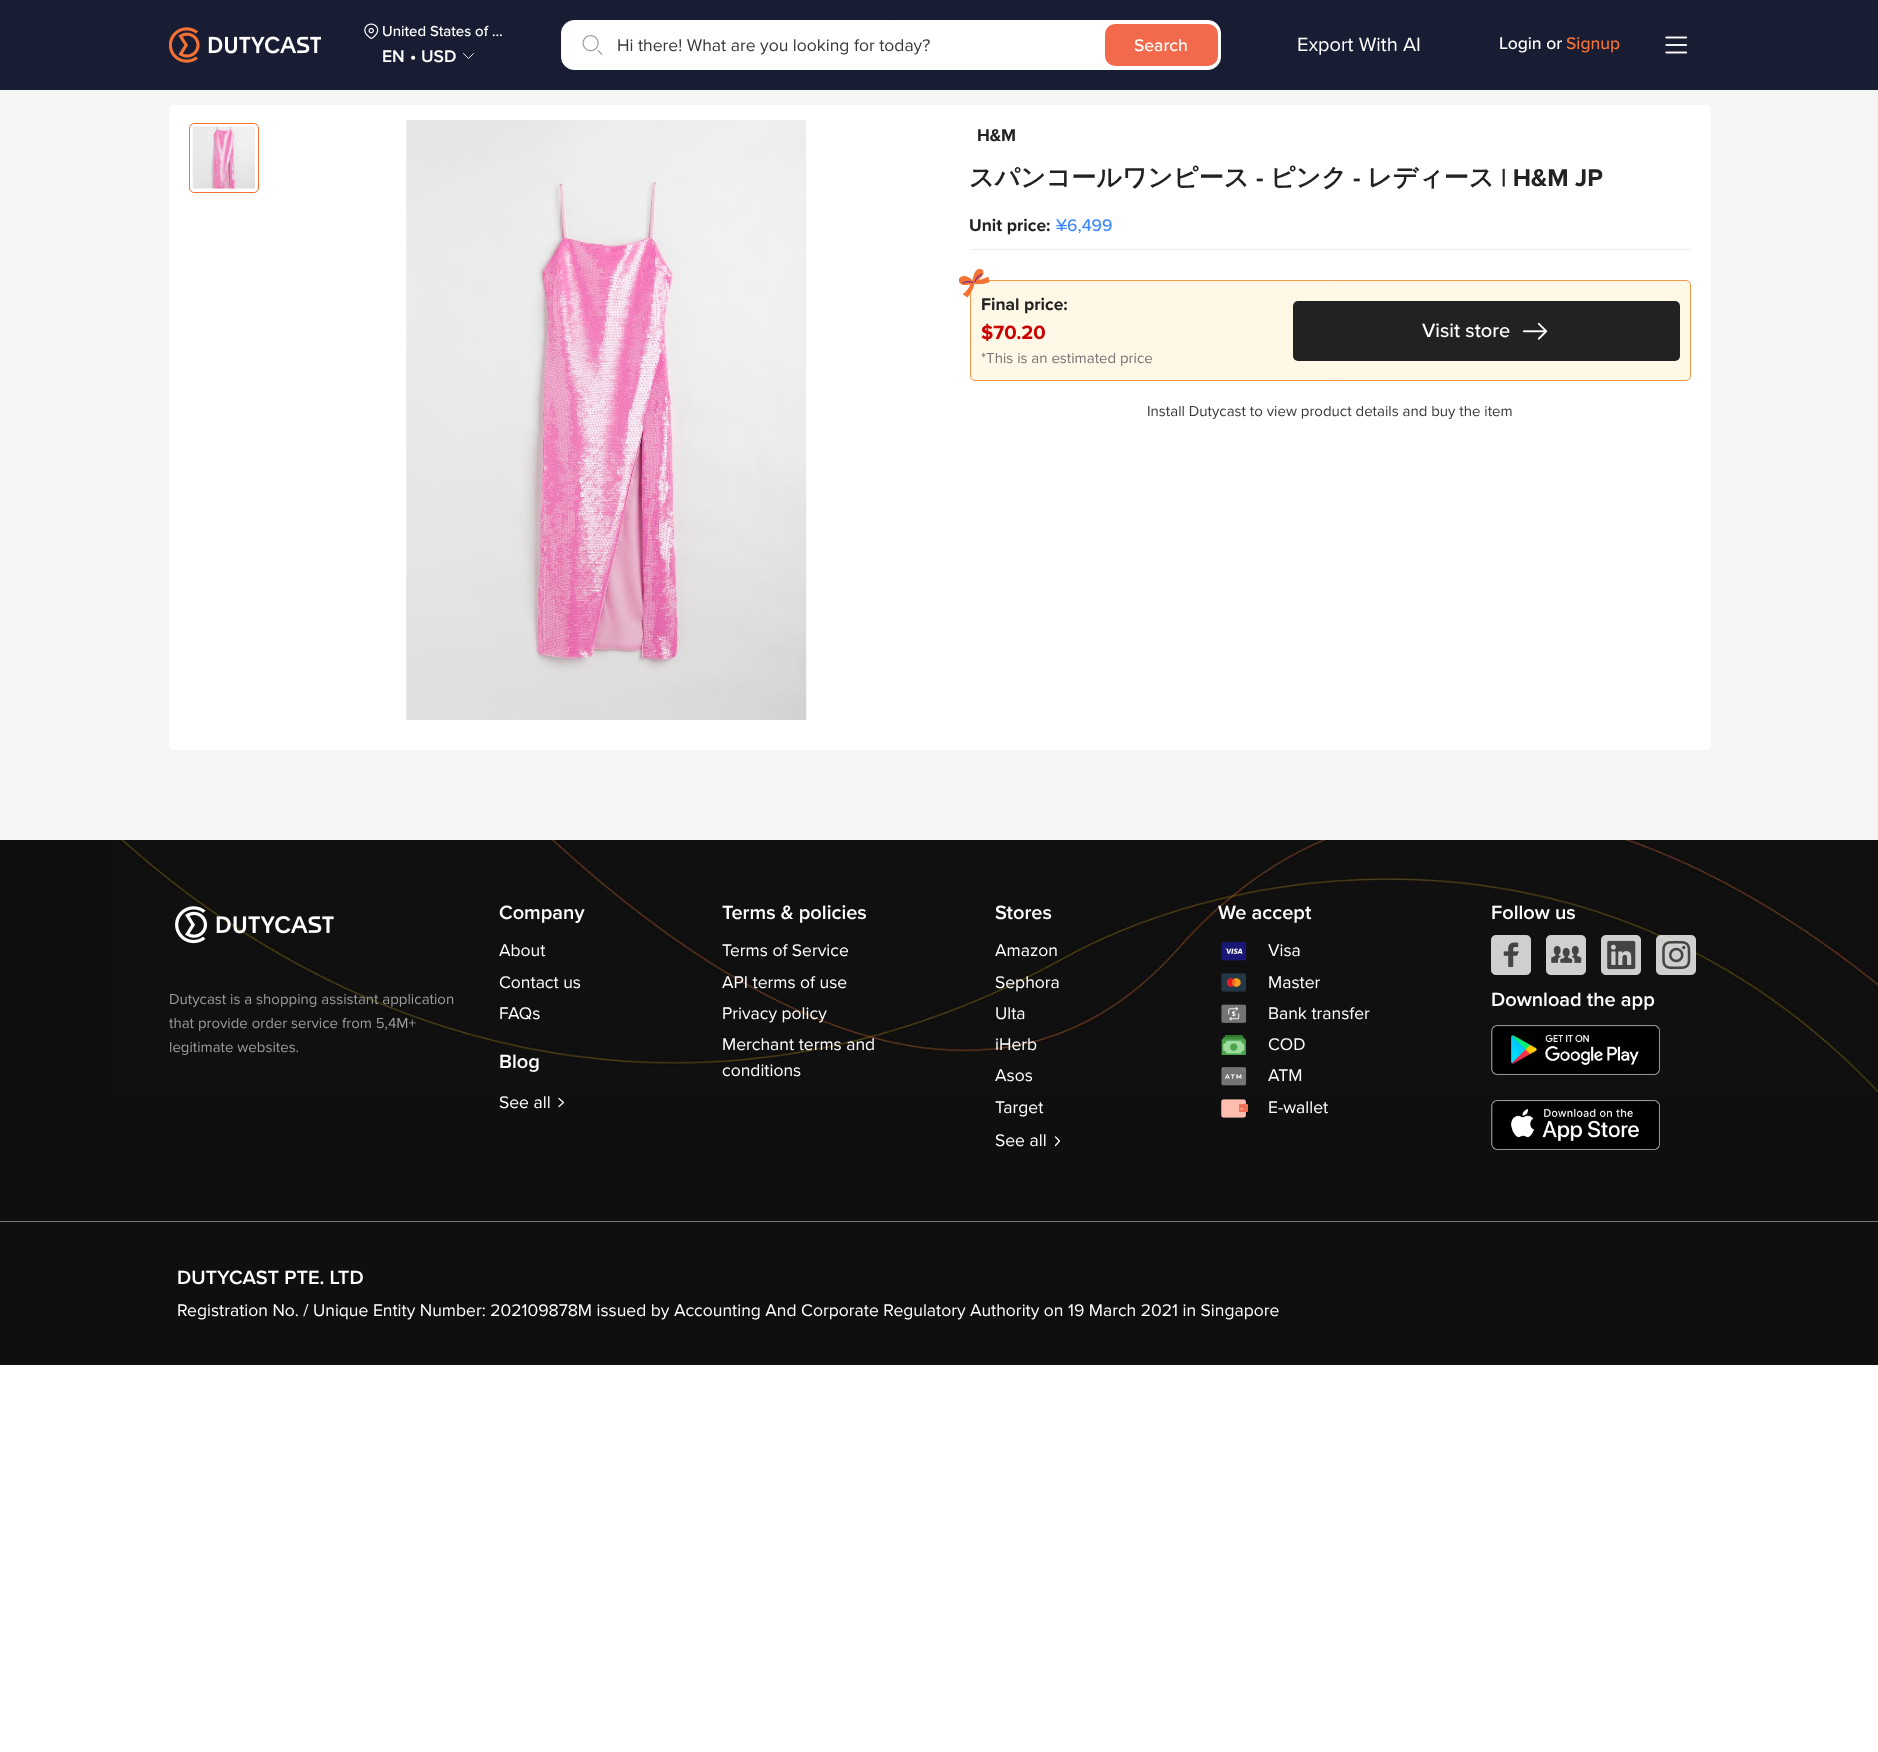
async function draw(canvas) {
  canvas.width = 1878
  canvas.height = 1752
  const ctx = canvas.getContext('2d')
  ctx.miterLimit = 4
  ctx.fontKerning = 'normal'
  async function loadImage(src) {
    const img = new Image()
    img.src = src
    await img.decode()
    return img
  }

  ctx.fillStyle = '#fff'
  ctx.fillRect(0, 0, 1878, 1752)
  ctx.fillStyle = '#191d34'
  ctx.fillRect(0, 0, 1878, 90)
  ctx.drawImage(await loadImage('image0.png'), 169, 27, 152, 36)
  ctx.drawImage(await loadImage('image1.png'), 364, 23, 15, 16)
  ctx.font = '500 15px Proxima Nova'
  ctx.fillStyle = '#fff'
  ctx.fillText('United States of …', 382, 36)
  ctx.font = '600 17.5px Proxima Nova'
  ctx.fillText('EN', 382, 62)
  ctx.fillText('•', 410, 62)
  ctx.fillText('USD', 421, 62)
  ctx.beginPath()
  ctx.moveTo(463.5, 53.5)
  ctx.lineTo(468.5, 58.5)
  ctx.lineTo(473.5, 53.5)
  ctx.strokeStyle = '#fff'
  ctx.lineWidth = 0.9
  ctx.lineCap = 'round'
  ctx.lineJoin = 'round'
  ctx.stroke()
  ctx.beginPath()
  ctx.roundRect(561.5, 20.5, 659, 49, 12.5)
  ctx.fill()
  ctx.strokeStyle = '#fafafa'
  ctx.lineWidth = 1
  ctx.lineJoin = 'miter'
  ctx.stroke()
  ctx.drawImage(await loadImage('image2.png'), 582, 35, 21, 20)
  ctx.font = '17.5px Proxima Nova'
  ctx.fillStyle = '#383838'
  ctx.fillText('Hi there! What are you looking for today?', 617, 51)
  ctx.fillStyle = '#f2694b'
  ctx.beginPath()
  ctx.roundRect(1105, 24, 113, 42, 10)
  ctx.fill()
  ctx.font = '500 17.5px Proxima Nova'
  ctx.fillStyle = '#fff'
  ctx.fillText('Search', 1134, 51)
  ctx.font = '20px Proxima Nova'
  ctx.fillText('Export With AI', 1297, 51)
  ctx.font = '500 17.5px Proxima Nova'
  ctx.fillText('Login or', 1499, 49)
  ctx.fillStyle = '#f37234'
  ctx.fillText('Signup', 1566, 49)
  ctx.drawImage(await loadImage('image3.png'), 1665, 36, 23, 18)
  ctx.fillStyle = '#f5f5f5'
  ctx.fillRect(0, 90, 1878, 750)
  ctx.fillStyle = '#fff'
  ctx.beginPath()
  ctx.roundRect(169, 105, 1542, 645, 5)
  ctx.fill()
  ctx.beginPath()
  ctx.roundRect(189.5, 123.5, 69, 69, 4.5)
  ctx.strokeStyle = '#f37234'
  ctx.stroke()
  ctx.drawImage(await loadImage('image4.png'), 192, 126, 63, 63)
  ctx.drawImage(await loadImage('image5.png'), 406, 120, 401, 600)
  ctx.font = 'bold 17.5px Proxima Nova'
  ctx.fillStyle = '#222'
  ctx.fillText('H&M', 977, 141)
  ctx.font = 'bold 25px WenQuanYi Zen Hei'
  ctx.fillText('スパンコールワンピース', 969, 186)
  ctx.font = 'bold 25px Proxima Nova'
  ctx.fillText('-', 1256, 186)
  ctx.font = 'bold 25px WenQuanYi Zen Hei'
  ctx.fillText('ピンク', 1270, 186)
  ctx.font = 'bold 25px Proxima Nova'
  ctx.fillText('-', 1353, 186)
  ctx.font = 'bold 25px WenQuanYi Zen Hei'
  ctx.fillText('レディース', 1367, 186)
  ctx.font = 'bold 25px Proxima Nova'
  ctx.fillText('| H&M JP', 1501, 186)
  ctx.font = 'bold 17.5px Proxima Nova'
  ctx.fillText('Unit price:', 969, 231)
  ctx.font = '500 17.5px Proxima Nova'
  ctx.fillStyle = '#3e89ff'
  ctx.fillText('¥6,499', 1056, 231)
  ctx.fillStyle = '#eee'
  ctx.fillRect(970, 249, 721, 1)
  ctx.fillStyle = '#fff8e6'
  ctx.beginPath()
  ctx.roundRect(970.5, 280.5, 720, 100, 4.5)
  ctx.fill()
  ctx.strokeStyle = '#f2994a'
  ctx.stroke()
  ctx.font = 'bold 17.5px Proxima Nova'
  ctx.fillStyle = '#222'
  ctx.fillText('Final price:', 981, 310)
  ctx.drawImage(await loadImage('image6.png'), 959, 269, 31, 29)
  ctx.font = 'bold 20px Proxima Nova'
  ctx.fillStyle = '#c00'
  ctx.fillText('$70.20', 981, 339)
  ctx.font = '15px Proxima Nova'
  ctx.fillStyle = '#747474'
  ctx.fillText('*This is an estimated price', 981, 363)
  ctx.fillStyle = '#222'
  ctx.beginPath()
  ctx.roundRect(1293, 301, 387, 60, 5)
  ctx.fill()
  ctx.font = '500 20px Proxima Nova'
  ctx.fillStyle = '#fff'
  ctx.fillText('Visit store', 1422, 337)
  ctx.drawImage(await loadImage('image7.png'), 1522, 322, 26, 18)
  ctx.font = '15px Proxima Nova'
  ctx.fillStyle = '#383838'
  ctx.fillText('Install Dutycast to view product details and buy the item', 1147, 416)
  ctx.fillStyle = '#0f0f0f'
  ctx.fillRect(0, 840, 1878, 525)
  ctx.drawImage(await loadImage('image8.png'), 118, 840, 1760, 254)
  ctx.font = '600 20px Proxima Nova'
  ctx.fillStyle = '#fff'
  ctx.fillText('Company', 499, 919)
  ctx.font = '17.5px Proxima Nova'
  ctx.fillText('About', 499, 956)
  ctx.fillText('Contact us', 499, 988)
  ctx.fillText('FAQs', 499, 1019)
  ctx.font = '600 20px Proxima Nova'
  ctx.fillText('Blog', 499, 1068)
  ctx.font = '17.5px Proxima Nova'
  ctx.fillText('See all', 499, 1108)
  ctx.beginPath()
  ctx.moveTo(559, 1098.5)
  ctx.lineTo(563.5, 1102.5)
  ctx.lineTo(559, 1106.5)
  ctx.strokeStyle = '#fff'
  ctx.lineWidth = 1.2
  ctx.lineJoin = 'round'
  ctx.stroke()
  ctx.font = '600 20px Proxima Nova'
  ctx.fillText('Terms & policies', 722, 919)
  ctx.font = '17.5px Proxima Nova'
  ctx.fillText('Terms of Service', 722, 956)
  ctx.fillText('API terms of use', 722, 988)
  ctx.fillText('Privacy policy', 722, 1019)
  ctx.fillText('Merchant terms and', 722, 1050)
  ctx.fillText('conditions', 722, 1076)
  ctx.font = '600 20px Proxima Nova'
  ctx.fillText('Stores', 995, 919)
  ctx.font = '17.5px Proxima Nova'
  ctx.fillText('Amazon', 995, 956)
  ctx.fillText('Sephora', 995, 988)
  ctx.fillText('Ulta', 995, 1019)
  ctx.fillText('iHerb', 995, 1050)
  ctx.fillText('Asos', 995, 1081)
  ctx.fillText('Target', 995, 1113)
  ctx.fillText('See all', 995, 1146)
  ctx.beginPath()
  ctx.moveTo(1055.5, 1137)
  ctx.lineTo(1059.5, 1141)
  ctx.lineTo(1055.5, 1145.5)
  ctx.stroke()
  ctx.font = '600 20px Proxima Nova'
  ctx.fillText('We accept', 1218, 919)
  ctx.drawImage(await loadImage('image9.png'), 1221, 942, 26, 19)
  ctx.font = '17.5px Proxima Nova'
  ctx.fillText('Visa', 1268, 956)
  ctx.drawImage(await loadImage('image10.png'), 1221, 973, 25, 19)
  ctx.fillText('Master', 1268, 988)
  ctx.drawImage(await loadImage('image11.png'), 1221, 1004, 26, 19)
  ctx.fillText('Bank transfer', 1268, 1019)
  ctx.drawImage(await loadImage('image12.png'), 1221, 1035, 25, 20)
  ctx.fillText('COD', 1268, 1050)
  ctx.drawImage(await loadImage('image13.png'), 1221, 1067, 26, 19)
  ctx.fillText('ATM', 1268, 1081)
  ctx.drawImage(await loadImage('image14.png'), 1221, 1099, 27, 19)
  ctx.fillText('E-wallet', 1268, 1113)
  ctx.font = '600 20px Proxima Nova'
  ctx.fillText('Follow us', 1491, 919)
  ctx.drawImage(await loadImage('image15.png'), 1491, 935, 40, 40)
  ctx.drawImage(await loadImage('image16.png'), 1546, 935, 40, 40)
  ctx.drawImage(await loadImage('image17.png'), 1601, 935, 40, 40)
  ctx.drawImage(await loadImage('image18.png'), 1656, 935, 40, 40)
  ctx.fillText('Download the app', 1491, 1006)
  ctx.drawImage(await loadImage('image19.png'), 1491, 1025, 169, 50)
  ctx.drawImage(await loadImage('image20.png'), 1491, 1100, 169, 50)
  ctx.drawImage(await loadImage('image21.png'), 175, 906, 159, 38)
  ctx.font = '15px Proxima Nova'
  ctx.fillStyle = '#9c9c9c'
  ctx.fillText('Dutycast is a shopping assistant application', 169, 1004)
  ctx.fillText('that provide order service from 5,4M+', 169, 1028)
  ctx.fillText('legitimate websites.', 169, 1052)
  ctx.fillStyle = '#747474'
  ctx.fillRect(0, 1221, 1878, 1)
  ctx.font = '600 20px Proxima Nova'
  ctx.fillStyle = '#fff'
  ctx.fillText('DUTYCAST PTE. LTD', 177, 1284)
  ctx.font = '17.5px Proxima Nova'
  ctx.fillText('Registration No. / Unique Entity Number: 202109878M issued by Accounting And Corporate Regulatory Authority on 19 March 2021 in Singapore', 177, 1316)
}

draw(document.querySelector('canvas'))
